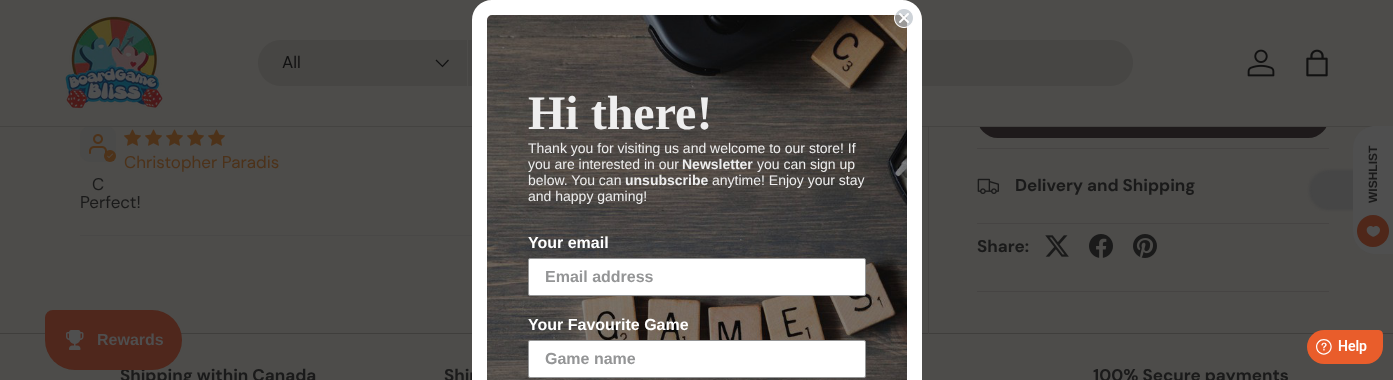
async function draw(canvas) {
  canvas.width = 1393
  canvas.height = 380
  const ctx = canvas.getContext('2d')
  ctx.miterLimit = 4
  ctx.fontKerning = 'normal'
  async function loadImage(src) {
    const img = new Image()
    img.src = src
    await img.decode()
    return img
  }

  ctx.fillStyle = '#4d4c4a'
  ctx.fillRect(0, 0, 1393, 380)
  ctx.fillStyle = '#1e1a1b'
  ctx.beginPath()
  ctx.roundRect(977, 96, 352, 42, 21)
  ctx.fill()
  ctx.fillStyle = '#4d4c4a'
  ctx.fillRect(977, 96, 352, 30)
  ctx.fillStyle = '#4a4a49'
  ctx.beginPath()
  ctx.roundRect(80, 126, 36, 36, 10)
  ctx.fill()
  ctx.fillStyle = '#444341'
  ctx.fillRect(0, 126, 1375, 1)
  ctx.drawImage(await loadImage('image0.png'), 65, 16, 98, 93)
  ctx.fillStyle = '#474644'
  ctx.beginPath()
  ctx.roundRect(258, 40, 875, 46, 23)
  ctx.fill()
  ctx.fillStyle = '#4d4c4a'
  ctx.fillRect(467, 40, 1, 46)
  ctx.font = '17px DM Sans'
  ctx.fillStyle = '#111'
  ctx.fillText('All', 282, 68)
  ctx.beginPath()
  ctx.moveTo(448.5, 60)
  ctx.lineTo(442.5, 66.5)
  ctx.lineTo(436, 60)
  ctx.strokeStyle = '#111'
  ctx.lineWidth = 1.2
  ctx.stroke()
  ctx.drawImage(await loadImage('image1.png'), 1247, 49, 28, 28)
  ctx.drawImage(await loadImage('image2.png'), 1306, 49, 22, 28)
  ctx.fillStyle = '#3f3e3c'
  ctx.fillRect(0, 333, 1393, 1)
  ctx.font = 'bold 17px DM Sans'
  ctx.fillStyle = '#1a1a1a'
  ctx.fillText('Ship', 444, 381)
  ctx.drawImage(await loadImage('image4.png'), 472, 15, 450, 365)
  ctx.beginPath()
  ctx.roundRect(479.5, 7.5, 435, 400, 12.5)
  ctx.strokeStyle = '#fff'
  ctx.lineWidth = 15
  ctx.stroke()
  ctx.drawImage(await loadImage('image3.png'), 894, 9, 19, 19)
  ctx.font = 'bold 48px Liberation Serif'
  ctx.fillStyle = '#eee'
  ctx.fillText('Hi there!', 528, 129)
  ctx.font = '14px Liberation Sans'
  ctx.fillText('Thank you for visiting us and welcome to our store! If', 528, 153)
  ctx.fillText('you are interested in our', 528, 169)
  ctx.font = 'bold 14px Liberation Sans'
  ctx.fillText('Newsletter', 682, 169)
  ctx.font = '14px Liberation Sans'
  ctx.fillText('you can sign up', 757, 169)
  ctx.fillText('below. You can', 528, 185)
  ctx.font = 'bold 14px Liberation Sans'
  ctx.fillText('unsubscribe', 625, 185)
  ctx.font = '14px Liberation Sans'
  ctx.fillText('anytime! Enjoy your stay', 712, 185)
  ctx.fillText('and happy gaming!', 528, 201)
  ctx.font = 'bold 16px Liberation Sans'
  ctx.fillStyle = '#fff'
  ctx.fillText('Your email', 528, 248)
  ctx.beginPath()
  ctx.roundRect(528.5, 258.5, 337, 37, 1.5)
  ctx.fill()
  ctx.strokeStyle = '#949596'
  ctx.lineWidth = 1
  ctx.stroke()
  ctx.fillStyle = '#949596'
  ctx.fillText('Email address', 545, 282)
  ctx.fillStyle = '#fff'
  ctx.fillText('Your Favourite Game', 528, 330)
  ctx.beginPath()
  ctx.roundRect(528.5, 340.5, 337, 37, 1.5)
  ctx.fill()
  ctx.stroke()
  ctx.fillStyle = '#949596'
  ctx.fillText('Game name', 545, 364)
  ctx.beginPath()
  ctx.moveTo(1325.5, 183)
  ctx.lineTo(1319.5, 189.5)
  ctx.lineTo(1313, 183)
  ctx.strokeStyle = '#1a1a1a'
  ctx.lineWidth = 1.2
  ctx.stroke()
  ctx.fillStyle = '#464646'
  ctx.filter = 'blur(1px)'
  ctx.beginPath()
  ctx.roundRect(1309, 170, 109, 40, 22)
  ctx.fill()
  ctx.filter = 'none'
  ctx.fillStyle = '#4f4f4f'
  ctx.beginPath()
  ctx.moveTo(1353, 232)
  ctx.lineTo(1353, 148)
  ctx.bezierCurveTo(1353, 136, 1363, 126, 1375, 126)
  ctx.lineTo(1393, 126)
  ctx.lineTo(1393, 254)
  ctx.lineTo(1375, 254)
  ctx.bezierCurveTo(1363, 254, 1353, 244, 1353, 232)
  ctx.closePath()
  ctx.fill()
  ctx.font = 'bold 12px Liberation Sans'
  ctx.fillStyle = '#1a1a1a'
  ctx.save()
  ctx.translate(1377, 203)
  ctx.rotate(-90 * Math.PI / 180)
  ctx.fillText('WISHLIST', 0, 0)
  ctx.restore()
  ctx.fillStyle = '#4f2719'
  ctx.beginPath()
  ctx.arc(1373, 231, 16, 0, 2 * Math.PI)
  ctx.fill()
  ctx.drawImage(await loadImage('image5.png'), 1366, 226, 14, 11)
  ctx.font = 'bold 17px DM Sans'
  ctx.fillStyle = '#1a1a1a'
  ctx.fillText('Shipping within Canada', 120, 381)
  ctx.fillStyle = '#4f271c'
  ctx.beginPath()
  ctx.roundRect(45, 310, 137, 60, [8, 30, 30, 30])
  ctx.fill()
  ctx.drawImage(await loadImage('image6.png'), 66, 330, 18, 20)
  ctx.font = 'bold 16px Liberation Sans'
  ctx.fillStyle = '#4f4f4f'
  ctx.fillText('Rewards', 97, 345)
  ctx.drawImage(await loadImage('image7.png'), 124, 129, 17, 17)
  ctx.drawImage(await loadImage('image7.png'), 145, 129, 17, 17)
  ctx.drawImage(await loadImage('image7.png'), 166, 129, 17, 17)
  ctx.drawImage(await loadImage('image7.png'), 187, 129, 17, 17)
  ctx.drawImage(await loadImage('image7.png'), 208, 129, 17, 17)
  ctx.font = '17px DM Sans'
  ctx.fillStyle = '#4d3219'
  ctx.fillText('Christopher Paradis', 124, 168)
  ctx.drawImage(await loadImage('image8.png'), 89, 134, 18, 20)
  ctx.beginPath()
  ctx.arc(110, 156, 6, 0, 2 * Math.PI)
  ctx.fill()
  ctx.drawImage(await loadImage('image9.png'), 107, 153, 6, 5)
  ctx.fillStyle = '#1a1a1a'
  ctx.fillText('C', 92, 190)
  ctx.fillText('Perfect!', 80, 208)
  ctx.fillStyle = '#494847'
  ctx.fillRect(80, 235, 392, 1)
  ctx.fillStyle = '#464443'
  ctx.fillRect(928, 127, 1, 207)
  ctx.fillRect(977, 148, 352, 1)
  ctx.fillRect(977, 223, 352, 1)
  ctx.drawImage(await loadImage('image10.png'), 977, 178, 22, 16)
  ctx.font = 'bold 17px DM Sans'
  ctx.fillStyle = '#1a1a1a'
  ctx.fillText('Delivery and Shipping', 1015, 191)
  ctx.fillText('Share:', 977, 252)
  ctx.drawImage(await loadImage('image11.png'), 1045, 235, 24, 22)
  ctx.drawImage(await loadImage('image12.png'), 1089, 234, 24, 24)
  ctx.drawImage(await loadImage('image13.png'), 1133, 234, 24, 24)
  ctx.fillStyle = '#464443'
  ctx.fillRect(977, 291, 352, 1)
  ctx.drawImage(await loadImage('image14.png'), 1307, 330, 77, 34)
  ctx.fillStyle = '#1a1a1a'
  ctx.fillText('100% Secure payments', 1093, 381)
}

draw(document.querySelector('canvas'))
